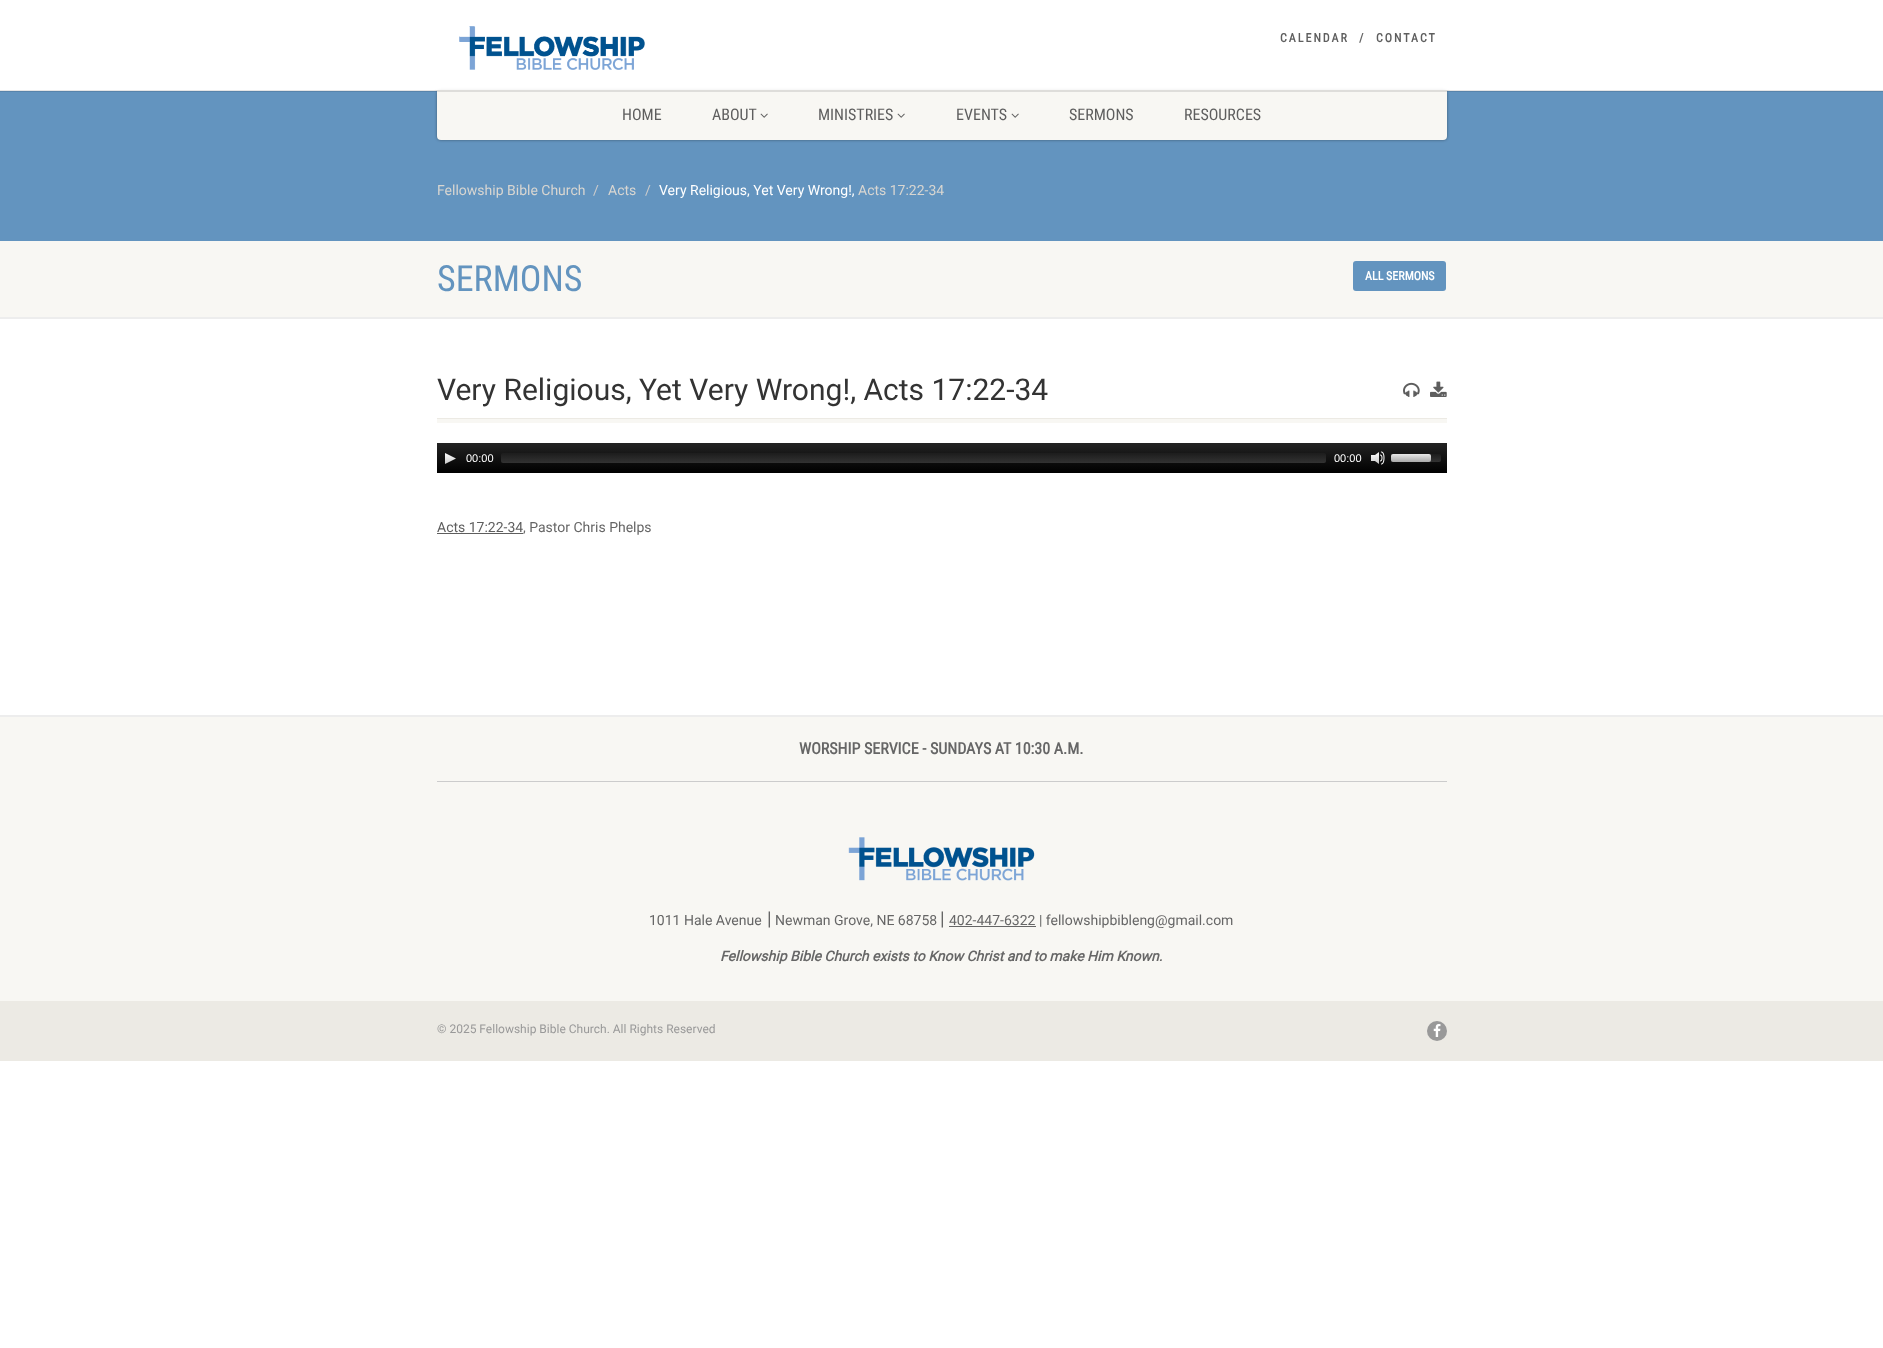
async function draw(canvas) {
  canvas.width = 1883
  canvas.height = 1348
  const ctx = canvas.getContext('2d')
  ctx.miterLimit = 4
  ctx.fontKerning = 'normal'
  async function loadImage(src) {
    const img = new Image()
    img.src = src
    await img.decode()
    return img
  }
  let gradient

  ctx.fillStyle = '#fff'
  ctx.fillRect(0, 0, 1883, 1348)
  ctx.fillStyle = '#6394bf'
  ctx.fillRect(0, 91, 1883, 150)
  ctx.fillStyle = '#00000066'
  ctx.filter = 'blur(1.5px)'
  ctx.beginPath()
  ctx.roundRect(437, 90, 1010, 50, 4)
  ctx.fill()
  ctx.filter = 'none'
  ctx.fillStyle = '#f8f7f3'
  ctx.beginPath()
  ctx.roundRect(437, 90, 1010, 50, [0, 0, 4, 4])
  ctx.fill()
  ctx.fillStyle = '#0000001a'
  ctx.fillRect(0, 90, 1883, 2)
  ctx.fillStyle = '#ffffffcc'
  ctx.fillRect(436, 87, 1012, 3)
  ctx.drawImage(await loadImage('image0.png'), 459, 26, 186, 44)
  ctx.letterSpacing = '2px'
  ctx.font = 'bold 12px Roboto Condensed'
  ctx.fillStyle = '#5e5e5e'
  ctx.fillText('CALENDAR', 1280, 42)
  ctx.fillStyle = '#666'
  ctx.fillText('/', 1359, 42)
  ctx.fillStyle = '#5e5e5e'
  ctx.fillText('CONTACT', 1376, 42)
  ctx.letterSpacing = '0px'
  ctx.font = '16px Roboto Condensed'
  ctx.fillText('HOME', 622, 120)
  ctx.fillText('ABOUT', 712, 120)
  ctx.drawImage(await loadImage('image1.png'), 760, 113, 8, 5)
  ctx.fillText('MINISTRIES', 818, 120)
  ctx.drawImage(await loadImage('image1.png'), 897, 113, 8, 5)
  ctx.fillText('EVENTS', 956, 120)
  ctx.drawImage(await loadImage('image1.png'), 1011, 113, 8, 5)
  ctx.fillText('SERMONS', 1069, 120)
  ctx.fillText('RESOURCES', 1184, 120)
  ctx.font = '14px Roboto'
  ctx.fillStyle = '#d8d6d1'
  ctx.fillText('Fellowship Bible Church', 437, 195)
  ctx.fillStyle = '#ccc'
  ctx.fillText('/', 593, 195)
  ctx.fillStyle = '#d8d6d1'
  ctx.fillText('Acts', 608, 195)
  ctx.fillStyle = '#ccc'
  ctx.fillText('/', 645, 195)
  ctx.fillStyle = '#fff'
  ctx.fillText('Very Religious, Yet Very Wrong!,', 659, 195)
  ctx.fillStyle = '#d8d6d1'
  ctx.fillText('Acts 17:22-34', 858, 195)
  ctx.fillStyle = '#ededed'
  ctx.fillRect(0, 317, 1883, 2)
  ctx.fillStyle = '#f8f7f3'
  ctx.fillRect(0, 241, 1883, 76)
  ctx.font = '36px Roboto Condensed'
  ctx.fillStyle = '#6394bf'
  ctx.fillText('SERMONS', 437, 291)
  ctx.beginPath()
  ctx.roundRect(1353, 261, 93, 30, 3)
  ctx.fill()
  ctx.font = 'bold 12px Roboto Condensed'
  ctx.fillStyle = '#fff'
  ctx.fillText('ALL SERMONS', 1365, 280)
  ctx.fillStyle = '#eceae4'
  ctx.fillRect(437, 418, 1010, 1)
  ctx.font = '30px Roboto'
  ctx.fillStyle = '#333'
  ctx.fillText('Very Religious, Yet Very Wrong!, Acts 17:22-34', 437, 400)
  ctx.drawImage(await loadImage('image2.png'), 1403, 382, 17, 15)
  ctx.drawImage(await loadImage('image3.png'), 1430, 381, 17, 16)
  ctx.fillStyle = '#f8f7f3'
  ctx.fillRect(437, 419, 1010, 4)
  gradient = ctx.createLinearGradient(942, 443, 942, 473)
  gradient.addColorStop(0, '#232323')
  gradient.addColorStop(1, '#000')
  ctx.fillStyle = gradient
  ctx.fillRect(437, 443, 1010, 30)
  ctx.drawImage(await loadImage('image4.png'), 445, 453, 11, 11)
  ctx.font = '11px Liberation Sans'
  ctx.fillStyle = '#fff'
  ctx.fillText('00:00', 466, 462)
  gradient = ctx.createLinearGradient(914, 453, 914, 463)
  gradient.addColorStop(0, '#1e1e1ecc')
  gradient.addColorStop(1, '#3c3c3ccc')
  ctx.fillStyle = gradient
  ctx.beginPath()
  ctx.roundRect(501, 453, 825, 10, 2)
  ctx.fill()
  ctx.fillStyle = '#fff'
  ctx.fillText('00:00', 1334, 462)
  ctx.drawImage(await loadImage('image5.png'), 1371, 451, 14, 14)
  gradient = ctx.createLinearGradient(1416, 454, 1416, 462)
  gradient.addColorStop(0, '#1e1e1ecc')
  gradient.addColorStop(1, '#3c3c3ccc')
  ctx.fillStyle = gradient
  ctx.beginPath()
  ctx.roundRect(1391, 454, 50, 8, 2)
  ctx.fill()
  gradient = ctx.createLinearGradient(1411, 454, 1411, 462)
  gradient.addColorStop(0, '#ffffffe6')
  gradient.addColorStop(1, '#c8c8c8cc')
  ctx.fillStyle = gradient
  ctx.beginPath()
  ctx.roundRect(1391, 454, 40, 8, 2)
  ctx.fill()
  ctx.font = '14px Roboto'
  ctx.fillStyle = '#5e5e5e'
  ctx.fillText('Acts 17:22-34', 437, 532)
  ctx.fillRect(437, 533, 86, 1)
  ctx.fillStyle = '#666'
  ctx.fillText(', Pastor Chris Phelps', 523, 532)
  ctx.fillStyle = '#ededed'
  ctx.fillRect(0, 715, 1883, 2)
  ctx.fillStyle = '#f8f7f3'
  ctx.fillRect(0, 717, 1883, 284)
  ctx.font = 'bold 16px Roboto Condensed'
  ctx.fillStyle = '#666'
  ctx.fillText('WORSHIP SERVICE - SUNDAYS AT 10:30 A.M.', 799, 754)
  ctx.fillStyle = '#ccc'
  ctx.fillRect(437, 781, 1010, 1)
  ctx.drawImage(await loadImage('image6.png'), 848, 837, 187, 44)
  ctx.font = '14px Roboto'
  ctx.fillStyle = '#666'
  ctx.fillText('1011 Hale Avenue', 649, 925)
  ctx.font = '19px Roboto'
  ctx.fillText('|', 767, 925)
  ctx.font = '14px Roboto'
  ctx.fillText('Newman Grove, NE 68758', 775, 925)
  ctx.font = '19px Roboto'
  ctx.fillText('|', 940, 925)
  ctx.fillRect(949, 926, 87, 1)
  ctx.font = '14px Roboto'
  ctx.fillText('402-447-6322 | fellowshipbibleng@gmail.com', 949, 925)
  ctx.font = 'italic bold 14px Roboto'
  ctx.fillText('Fellowship Bible Church exists to Know Christ and to make Him Known.', 720, 961)
  ctx.fillStyle = '#eceae4'
  ctx.fillRect(0, 1001, 1883, 60)
  ctx.font = '12px Roboto'
  ctx.fillStyle = '#999'
  ctx.fillText('© 2025 Fellowship Bible Church. All Rights Reserved', 437, 1033)
  ctx.beginPath()
  ctx.arc(1437, 1031, 10, 0, 2 * Math.PI)
  ctx.fill()
  ctx.drawImage(await loadImage('image7.png'), 1433, 1024, 8, 13)
}

draw(document.querySelector('canvas'))
